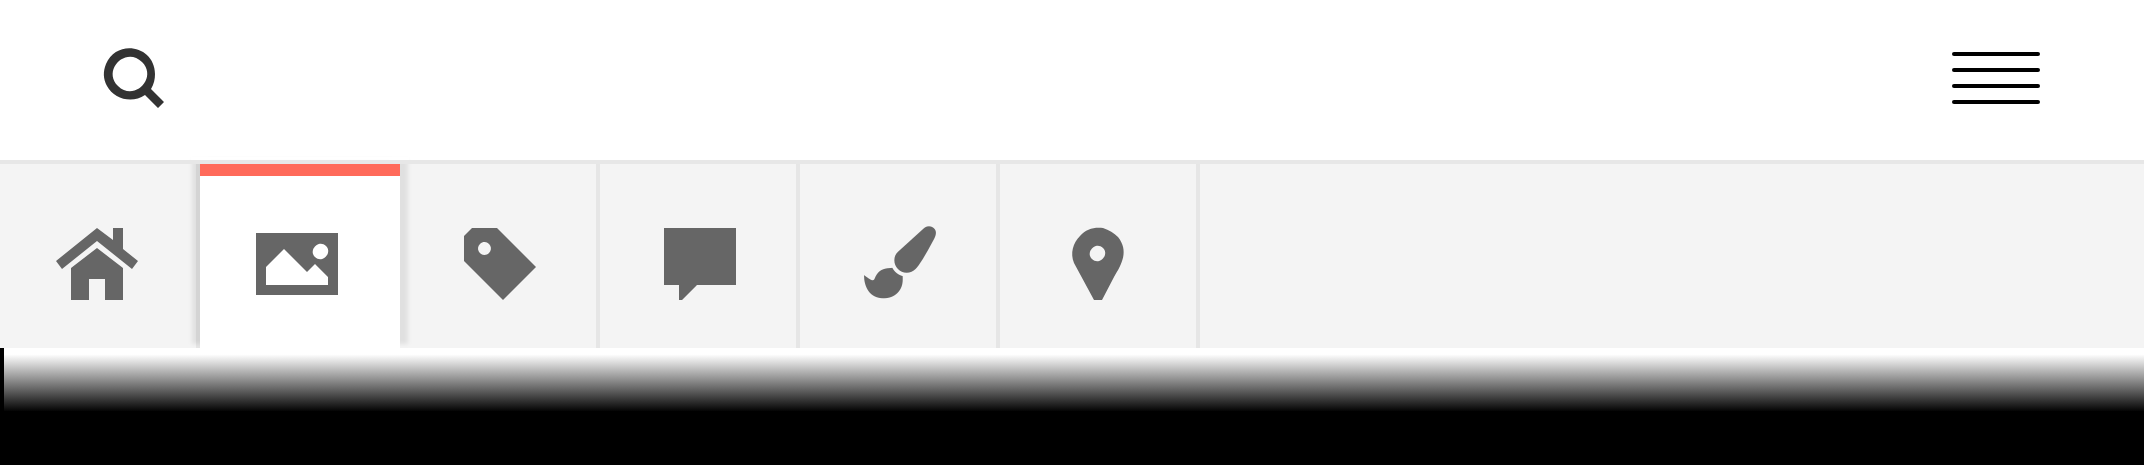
async function draw(canvas) {
  canvas.width = 2144
  canvas.height = 465
  const ctx = canvas.getContext('2d')
  ctx.miterLimit = 4
  ctx.fontKerning = 'normal'
  async function loadImage(src) {
    const img = new Image()
    img.src = src
    await img.decode()
    return img
  }
  let gradient

  ctx.fillStyle = '#fff'
  ctx.fillRect(0, 0, 2144, 465)
  ctx.fillStyle = '#000'
  ctx.fillRect(0, 348, 2144, 117)
  ctx.fillStyle = '#f4f4f4'
  ctx.fillRect(0, 164, 2144, 184)
  ctx.fillStyle = '#e6e6e6'
  ctx.fillRect(196, 164, 4, 184)
  ctx.fillStyle = '#00000014'
  ctx.filter = 'blur(2px)'
  ctx.beginPath()
  ctx.rect(192, 160, 200, 184)
  ctx.fill()
  ctx.filter = 'none'
  ctx.filter = 'blur(2px)'
  ctx.beginPath()
  ctx.rect(208, 160, 200, 184)
  ctx.fill()
  ctx.filter = 'none'
  ctx.fillStyle = '#fffffff0'
  ctx.fillRect(191, 157, 218, 3)
  ctx.fillStyle = '#e7e7e7'
  ctx.fillRect(0, 160, 2144, 4)
  ctx.fillStyle = '#333'
  ctx.beginPath()
  ctx.moveTo(164, 102)
  ctx.lineTo(158, 108)
  ctx.lineTo(145, 95)
  ctx.bezierCurveTo(132, 104, 114, 99, 107, 86)
  ctx.bezierCurveTo(103, 79, 103, 71, 106, 64)
  ctx.bezierCurveTo(117, 38, 155, 46, 155, 74)
  ctx.bezierCurveTo(155, 79, 154, 84, 151, 89)
  ctx.closePath()
  ctx.moveTo(118, 86)
  ctx.bezierCurveTo(134, 102, 158, 78, 142, 62)
  ctx.bezierCurveTo(126, 46, 102, 70, 118, 86)
  ctx.closePath()
  ctx.fill()
  ctx.fillStyle = '#000'
  ctx.beginPath()
  ctx.roundRect(1952, 52, 88, 4, 2)
  ctx.fill()
  ctx.beginPath()
  ctx.roundRect(1952, 68, 88, 4, 2)
  ctx.fill()
  ctx.beginPath()
  ctx.roundRect(1952, 84, 88, 4, 2)
  ctx.fill()
  ctx.beginPath()
  ctx.roundRect(1952, 100, 88, 4, 2)
  ctx.fill()
  ctx.fillStyle = '#666'
  ctx.beginPath()
  ctx.moveTo(123, 268)
  ctx.lineTo(123, 300)
  ctx.lineTo(105, 300)
  ctx.lineTo(105, 279)
  ctx.lineTo(89, 279)
  ctx.lineTo(89, 300)
  ctx.lineTo(71, 300)
  ctx.lineTo(71, 268)
  ctx.lineTo(97, 248)
  ctx.closePath()
  ctx.moveTo(123, 249)
  ctx.lineTo(138, 261)
  ctx.lineTo(132, 269)
  ctx.lineTo(97, 241)
  ctx.lineTo(62, 269)
  ctx.lineTo(56, 261)
  ctx.lineTo(97, 228)
  ctx.lineTo(113, 240)
  ctx.lineTo(113, 228)
  ctx.lineTo(123, 228)
  ctx.closePath()
  ctx.fill()
  ctx.fillStyle = '#fff'
  ctx.fillRect(200, 176, 200, 172)
  ctx.fillStyle = '#ff6a5a'
  ctx.fillRect(200, 164, 200, 12)
  ctx.fillStyle = '#666'
  ctx.beginPath()
  ctx.moveTo(256, 233)
  ctx.lineTo(338, 233)
  ctx.lineTo(338, 295)
  ctx.lineTo(256, 295)
  ctx.closePath()
  ctx.moveTo(328, 285)
  ctx.lineTo(328, 277)
  ctx.lineTo(315, 264)
  ctx.lineTo(307, 272)
  ctx.lineTo(284, 249)
  ctx.lineTo(266, 267)
  ctx.lineTo(266, 285)
  ctx.closePath()
  ctx.moveTo(315, 257)
  ctx.bezierCurveTo(322, 264, 333, 253, 326, 246)
  ctx.bezierCurveTo(319, 239, 308, 250, 315, 257)
  ctx.closePath()
  ctx.fill()
  ctx.fillStyle = '#e6e6e6'
  ctx.fillRect(596, 164, 4, 184)
  ctx.fillStyle = '#666'
  ctx.beginPath()
  ctx.moveTo(489, 253)
  ctx.bezierCurveTo(495, 247, 486, 238, 480, 244)
  ctx.bezierCurveTo(474, 250, 483, 259, 489, 253)
  ctx.closePath()
  ctx.moveTo(497, 228)
  ctx.lineTo(536, 267)
  ctx.lineTo(503, 300)
  ctx.lineTo(464, 261)
  ctx.lineTo(464, 236)
  ctx.lineTo(472, 228)
  ctx.closePath()
  ctx.fill()
  ctx.fillStyle = '#e6e6e6'
  ctx.fillRect(796, 164, 4, 184)
  ctx.fillStyle = '#666'
  ctx.beginPath()
  ctx.moveTo(664, 228)
  ctx.lineTo(736, 228)
  ctx.lineTo(736, 285)
  ctx.lineTo(697, 285)
  ctx.lineTo(682, 300)
  ctx.lineTo(679, 300)
  ctx.lineTo(679, 285)
  ctx.lineTo(664, 285)
  ctx.closePath()
  ctx.fill()
  ctx.fillStyle = '#e6e6e6'
  ctx.fillRect(996, 164, 4, 184)
  ctx.drawImage(await loadImage('image0.png'), 864, 226, 72, 73)
  ctx.fillRect(1196, 164, 4, 184)
  ctx.fillStyle = '#666'
  ctx.beginPath()
  ctx.moveTo(1080, 236)
  ctx.bezierCurveTo(1086, 229, 1094, 227, 1103, 228)
  ctx.bezierCurveTo(1109, 230, 1114, 233, 1118, 237)
  ctx.bezierCurveTo(1129, 251, 1122, 264, 1114, 277)
  ctx.lineTo(1102, 300)
  ctx.lineTo(1094, 300)
  ctx.lineTo(1074, 263)
  ctx.bezierCurveTo(1070, 253, 1073, 243, 1080, 236)
  ctx.closePath()
  ctx.moveTo(1092, 259)
  ctx.bezierCurveTo(1099, 266, 1110, 255, 1103, 248)
  ctx.bezierCurveTo(1096, 241, 1085, 252, 1092, 259)
  ctx.closePath()
  ctx.fill()
  gradient = ctx.createLinearGradient(1074, 348, 1074, 412)
  gradient.addColorStop(0.1, '#fff')
  gradient.addColorStop(1, '#000')
  ctx.fillStyle = gradient
  ctx.fillRect(4, 348, 2140, 63)
}

draw(document.querySelector('canvas'))
